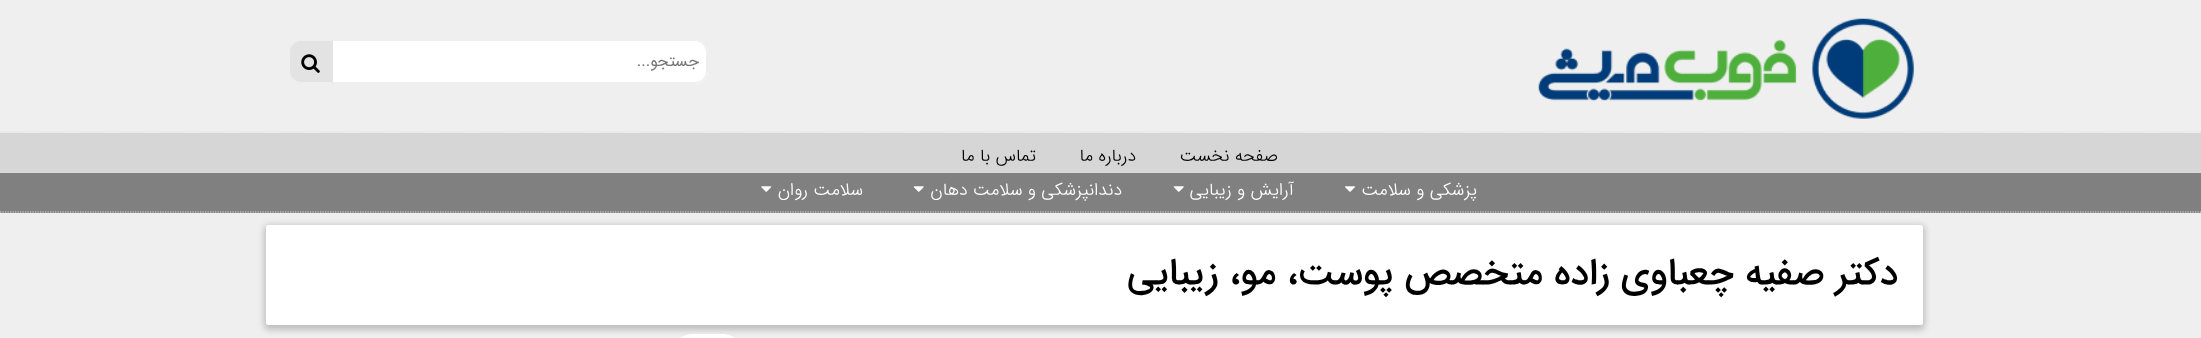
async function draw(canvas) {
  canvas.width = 2201
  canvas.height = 338
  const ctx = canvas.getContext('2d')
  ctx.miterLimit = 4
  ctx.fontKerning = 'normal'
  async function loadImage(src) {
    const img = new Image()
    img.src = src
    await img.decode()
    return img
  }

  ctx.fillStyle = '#efefef'
  ctx.fillRect(0, 0, 2201, 338)
  ctx.beginPath()
  ctx.moveTo(0, 132)
  ctx.lineTo(2201, 132)
  ctx.strokeStyle = '#dedede'
  ctx.lineWidth = 1.2
  ctx.setLineDash([1.25, 1.25])
  ctx.stroke()
  ctx.drawImage(await loadImage('image0.png'), 1538, 18, 376, 101)
  ctx.fillStyle = '#fff'
  ctx.beginPath()
  ctx.roundRect(333, 40, 375, 44, [0, 13, 13, 0])
  ctx.fill()
  ctx.fillStyle = '#efefef'
  ctx.beginPath()
  ctx.moveTo(332, 40)
  ctx.lineTo(695, 40)
  ctx.bezierCurveTo(702, 40, 708, 46, 708, 52)
  ctx.lineTo(708, 71)
  ctx.bezierCurveTo(708, 78, 702, 84, 695, 84)
  ctx.lineTo(332, 84)
  ctx.closePath()
  ctx.moveTo(332, 41)
  ctx.lineTo(695, 41)
  ctx.bezierCurveTo(701, 41, 706, 46, 706, 52)
  ctx.lineTo(706, 71)
  ctx.bezierCurveTo(706, 77, 701, 82, 695, 82)
  ctx.lineTo(332, 82)
  ctx.closePath()
  ctx.fill('evenodd')
  ctx.direction = 'rtl'
  ctx.font = '16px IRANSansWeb'
  ctx.fillStyle = '#757575'
  ctx.fillText('جستجو...', 699, 66)
  ctx.fillStyle = '#e3e3e3'
  ctx.beginPath()
  ctx.roundRect(289, 40, 44, 44, [13, 0, 0, 13])
  ctx.fill()
  ctx.fillStyle = '#efefef'
  ctx.beginPath()
  ctx.moveTo(301, 40)
  ctx.lineTo(332, 40)
  ctx.lineTo(332, 84)
  ctx.lineTo(301, 84)
  ctx.bezierCurveTo(294, 84, 289, 78, 289, 71)
  ctx.lineTo(289, 52)
  ctx.bezierCurveTo(289, 46, 294, 40, 301, 40)
  ctx.closePath()
  ctx.moveTo(301, 41)
  ctx.lineTo(332, 41)
  ctx.lineTo(332, 82)
  ctx.lineTo(301, 82)
  ctx.bezierCurveTo(295, 82, 290, 77, 290, 71)
  ctx.lineTo(290, 52)
  ctx.bezierCurveTo(290, 46, 295, 41, 301, 41)
  ctx.closePath()
  ctx.fill('evenodd')
  ctx.drawImage(await loadImage('image1.png'), 301, 54, 19, 19)
  ctx.fillStyle = '#d6d6d6'
  ctx.fillRect(0, 133, 2201, 40)
  ctx.beginPath()
  ctx.moveTo(0, 172)
  ctx.lineTo(2201, 172)
  ctx.stroke()
  ctx.font = '300 17.5px IRANSansWeb'
  ctx.fillStyle = '#000'
  ctx.fillText('صفحه نخست', 1278, 161)
  ctx.fillText('درباره ما', 1136, 161)
  ctx.fillText('تماس با ما', 1036, 161)
  ctx.fillStyle = '#808080'
  ctx.fillRect(0, 173, 2201, 40)
  ctx.beginPath()
  ctx.moveTo(0, 212)
  ctx.lineTo(2201, 212)
  ctx.stroke()
  ctx.fillStyle = '#fff'
  ctx.fillText('پزشکی و سلامت', 1477, 195)
  ctx.drawImage(await loadImage('image2.png'), 1345, 186, 10, 6)
  ctx.fillText('آرایش و زیبایی', 1294, 195)
  ctx.drawImage(await loadImage('image3.png'), 1173, 186, 11, 6)
  ctx.fillText('دندانپزشکی و سلامت دهان', 1122, 195)
  ctx.drawImage(await loadImage('image3.png'), 913, 186, 11, 6)
  ctx.fillText('سلامت روان', 863, 195)
  ctx.drawImage(await loadImage('image4.png'), 761, 186, 11, 6)
  ctx.fillStyle = '#00000033'
  ctx.filter = 'blur(3px)'
  ctx.beginPath()
  ctx.roundRect(264, 225, 1661, 105, 5)
  ctx.fill()
  ctx.filter = 'none'
  ctx.fillStyle = '#fff'
  ctx.beginPath()
  ctx.roundRect(266, 225, 1657, 100, 2.5)
  ctx.fill()
  ctx.font = '500 37.5px IRANSansWeb'
  ctx.fillStyle = '#000'
  ctx.fillText('دکتر صفیه چعباوی زاده متخصص پوست، مو، زیبایی', 1898, 284)
  ctx.beginPath()
  ctx.roundRect(672, 336, 71, 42, 35.5)
  ctx.strokeStyle = '#fff'
  ctx.lineWidth = 4
  ctx.setLineDash([])
  ctx.stroke()
}

draw(document.querySelector('canvas'))
